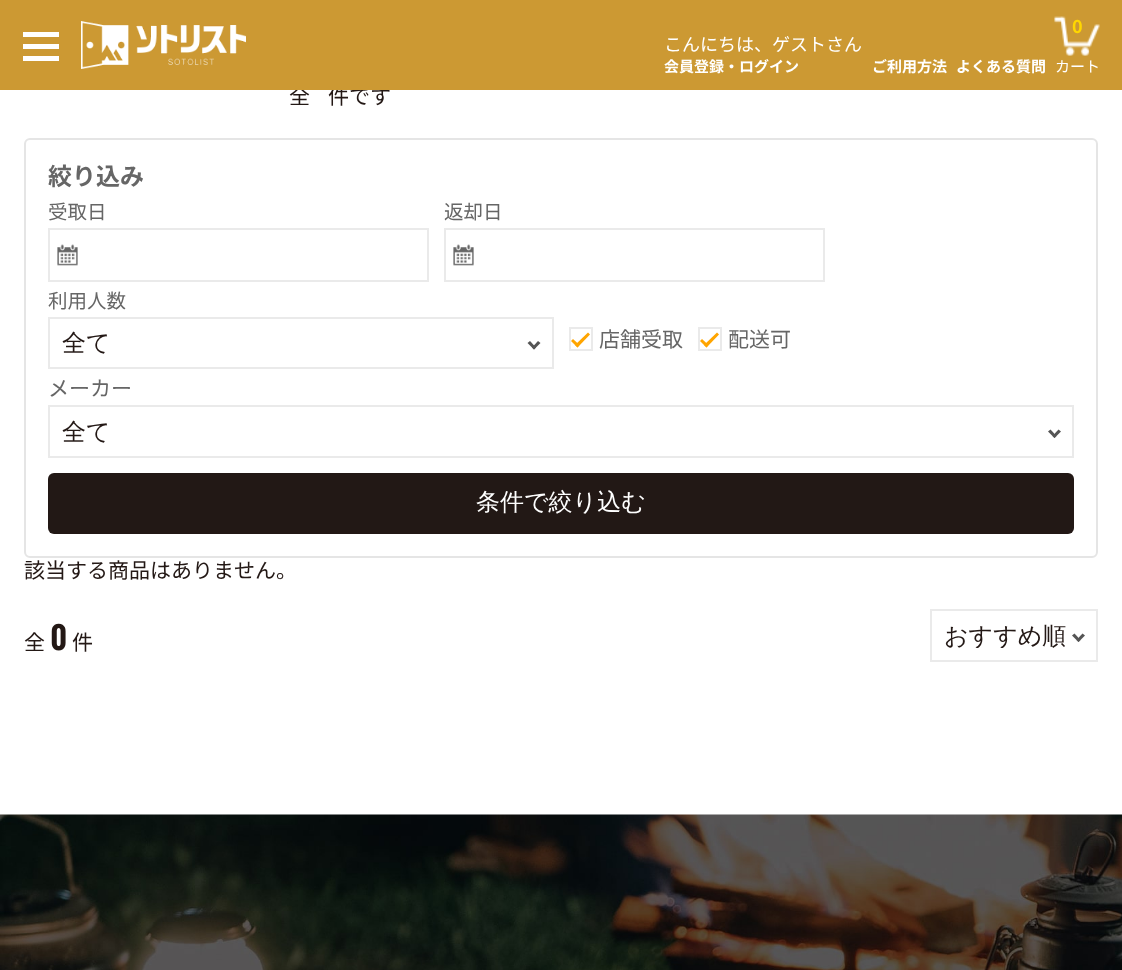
async function draw(canvas) {
  canvas.width = 1122
  canvas.height = 970
  const ctx = canvas.getContext('2d')
  ctx.miterLimit = 4
  ctx.fontKerning = 'normal'
  async function loadImage(src) {
    const img = new Image()
    img.src = src
    await img.decode()
    return img
  }

  ctx.fillStyle = '#fff'
  ctx.fillRect(0, 0, 1122, 970)
  ctx.font = '21px Noto Sans JP'
  ctx.fillStyle = '#231815'
  ctx.fillText('全', 289, 104)
  ctx.fillText('件です', 328, 104)
  ctx.fillStyle = '#c93'
  ctx.fillRect(0, 0, 1122, 90)
  ctx.fillStyle = '#fff'
  ctx.fillRect(23, 32, 36, 5)
  ctx.fillRect(23, 44, 36, 5)
  ctx.fillRect(23, 56, 36, 5)
  ctx.drawImage(await loadImage('image0.png'), 81, 21, 165, 48)
  ctx.font = '18px Noto Sans JP'
  ctx.fillText('こんにちは、ゲストさん', 664, 51)
  ctx.font = 'bold 15px Noto Sans JP'
  ctx.fillText('会員登録・ログイン', 664, 72)
  ctx.fillText('ご利用方法', 872, 72)
  ctx.fillText('よくある質問', 956, 72)
  ctx.drawImage(await loadImage('image1.png'), 1054, 16, 46, 40)
  ctx.font = 'bold 18px Noto Sans JP'
  ctx.fillStyle = '#ffd700'
  ctx.fillText('0', 1072, 33)
  ctx.font = '15px Noto Sans JP'
  ctx.fillStyle = '#fff'
  ctx.fillText('カート', 1055, 72)
  ctx.beginPath()
  ctx.roundRect(25, 139, 1072, 418, 5)
  ctx.strokeStyle = '#e5e5e5'
  ctx.lineWidth = 2
  ctx.stroke()
  ctx.font = 'bold 24px Noto Sans JP'
  ctx.fillStyle = '#666'
  ctx.fillText('絞り込み', 48, 185)
  ctx.font = '19.5px Noto Sans JP'
  ctx.fillText('受取日', 48, 219)
  ctx.strokeStyle = '#eaeaea'
  ctx.strokeRect(49, 229, 379, 52)
  ctx.drawImage(await loadImage('image2.png'), 57, 244, 21, 22)
  ctx.fillText('返却日', 444, 219)
  ctx.strokeRect(445, 229, 379, 52)
  ctx.drawImage(await loadImage('image2.png'), 453, 244, 21, 22)
  ctx.fillText('利用人数', 48, 308)
  ctx.strokeRect(49, 318, 504, 50)
  ctx.font = '500 24px WenQuanYi Zen Hei'
  ctx.fillStyle = '#231815'
  ctx.fillText('全て', 62, 351)
  ctx.fillStyle = '#555'
  ctx.beginPath()
  ctx.moveTo(540.5, 343)
  ctx.lineTo(534, 349.5)
  ctx.lineTo(532, 347.5)
  ctx.lineTo(538, 341)
  ctx.closePath()
  ctx.fill()
  ctx.beginPath()
  ctx.moveTo(536, 347.5)
  ctx.lineTo(534, 349.5)
  ctx.lineTo(527.5, 343)
  ctx.lineTo(530, 341)
  ctx.closePath()
  ctx.fill()
  ctx.strokeRect(570, 328, 22, 22)
  ctx.font = '21px Noto Sans JP'
  ctx.fillStyle = '#666'
  ctx.fillText('店舗受取', 599, 347)
  ctx.fillStyle = '#ffa500'
  ctx.beginPath()
  ctx.moveTo(588, 332.5)
  ctx.lineTo(590, 334.5)
  ctx.lineTo(577.5, 347.5)
  ctx.lineTo(575, 345)
  ctx.closePath()
  ctx.fill()
  ctx.beginPath()
  ctx.moveTo(573, 339)
  ctx.lineTo(579.5, 345)
  ctx.lineTo(577.5, 347.5)
  ctx.lineTo(571, 341)
  ctx.closePath()
  ctx.fill()
  ctx.strokeRect(699, 328, 22, 22)
  ctx.fillStyle = '#666'
  ctx.fillText('配送可', 728, 347)
  ctx.fillStyle = '#ffa500'
  ctx.beginPath()
  ctx.moveTo(717, 332.5)
  ctx.lineTo(719, 334.5)
  ctx.lineTo(706.5, 347.5)
  ctx.lineTo(704, 345)
  ctx.closePath()
  ctx.fill()
  ctx.beginPath()
  ctx.moveTo(702, 339)
  ctx.lineTo(708.5, 345)
  ctx.lineTo(706.5, 347.5)
  ctx.lineTo(700, 341)
  ctx.closePath()
  ctx.fill()
  ctx.fillStyle = '#666'
  ctx.fillText('メーカー', 48, 396)
  ctx.strokeRect(49, 406, 1024, 51)
  ctx.font = '500 24px WenQuanYi Zen Hei'
  ctx.fillStyle = '#231815'
  ctx.fillText('全て', 62, 440)
  ctx.fillStyle = '#555'
  ctx.beginPath()
  ctx.moveTo(1061, 431.5)
  ctx.lineTo(1054.5, 438)
  ctx.lineTo(1052.5, 436)
  ctx.lineTo(1058.5, 429.5)
  ctx.closePath()
  ctx.fill()
  ctx.beginPath()
  ctx.moveTo(1056.5, 436)
  ctx.lineTo(1054.5, 438)
  ctx.lineTo(1048, 431.5)
  ctx.lineTo(1050.5, 429.5)
  ctx.closePath()
  ctx.fill()
  ctx.fillStyle = '#221815'
  ctx.beginPath()
  ctx.roundRect(48, 473, 1026, 61, 6)
  ctx.fill()
  ctx.fillStyle = '#fff'
  ctx.fillText('条件で絞り込む', 476, 510)
  ctx.font = '21px Noto Sans JP'
  ctx.fillStyle = '#231815'
  ctx.fillText('該当する商品はありません。', 24, 578)
  ctx.fillText('全', 24, 650)
  ctx.font = '600 32px Oswald'
  ctx.fillText('0', 50, 650)
  ctx.font = '21px Noto Sans JP'
  ctx.fillText('件', 72, 650)
  ctx.strokeRect(931, 610, 166, 51)
  ctx.save()
  ctx.beginPath()
  ctx.rect(944, 623, 123, 25)
  ctx.clip()
  ctx.font = '500 24px WenQuanYi Zen Hei'
  ctx.fillText('おすすめ順', 944, 644)
  ctx.restore()
  ctx.fillStyle = '#555'
  ctx.beginPath()
  ctx.moveTo(1085, 635.5)
  ctx.lineTo(1078.5, 642)
  ctx.lineTo(1076.5, 640)
  ctx.lineTo(1082.5, 633.5)
  ctx.closePath()
  ctx.fill()
  ctx.beginPath()
  ctx.moveTo(1080.5, 640)
  ctx.lineTo(1078.5, 642)
  ctx.lineTo(1072, 635.5)
  ctx.lineTo(1074.5, 633.5)
  ctx.closePath()
  ctx.fill()
  ctx.drawImage(await loadImage('image3.png'), 0, 814, 1122, 156)
}

draw(document.querySelector('canvas'))
